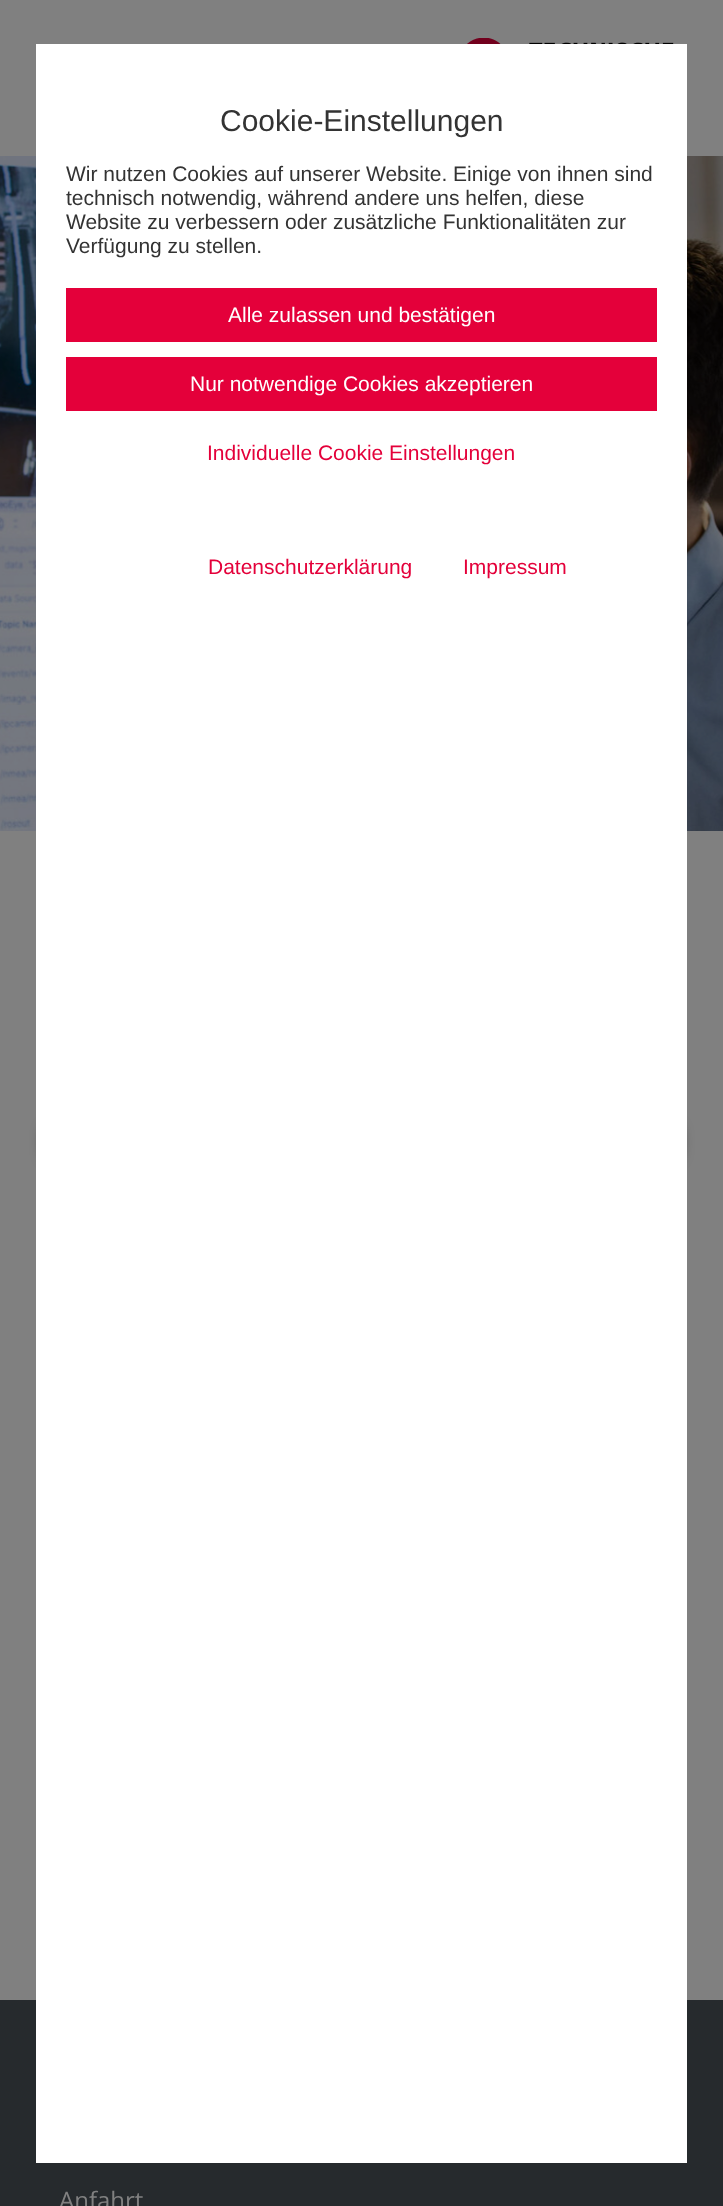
async function draw(canvas) {
  canvas.width = 723
  canvas.height = 2206
  const ctx = canvas.getContext('2d')
  ctx.miterLimit = 4
  ctx.fontKerning = 'normal'
  async function loadImage(src) {
    const img = new Image()
    img.src = src
    await img.decode()
    return img
  }

  ctx.fillStyle = '#808080'
  ctx.fillRect(0, 0, 723, 2206)
  ctx.drawImage(await loadImage('image0.png'), 467, 38, 207, 6)
  ctx.drawImage(await loadImage('image1.png'), 0, 156, 723, 675)
  ctx.fillStyle = '#000'
  ctx.filter = 'blur(7.5px)'
  ctx.beginPath()
  ctx.rect(47, 1130, 630, 25)
  ctx.fill()
  ctx.filter = 'none'
  ctx.fillStyle = '#262a2d'
  ctx.fillRect(0, 2000, 723, 206)
  ctx.fillStyle = '#fff'
  ctx.fillRect(36, 44, 651, 2119)
  ctx.font = '30px Liberation Sans'
  ctx.fillStyle = '#333'
  ctx.fillText('Cookie-Einstellungen', 220, 131)
  ctx.font = '21px Liberation Sans'
  ctx.fillText('Wir nutzen Cookies auf unserer Website. Einige von ihnen sind', 66, 181)
  ctx.fillText('technisch notwendig, während andere uns helfen, diese', 66, 205)
  ctx.fillText('Website zu verbessern oder zusätzliche Funktionalitäten zur', 66, 229)
  ctx.fillText('Verfügung zu stellen.', 66, 253)
  ctx.fillStyle = '#e4003a'
  ctx.fillRect(66, 288, 591, 54)
  ctx.fillStyle = '#fff'
  ctx.fillText('Alle zulassen und bestätigen', 228, 322)
  ctx.fillStyle = '#e4003a'
  ctx.fillRect(66, 357, 591, 54)
  ctx.fillStyle = '#fff'
  ctx.fillText('Nur notwendige Cookies akzeptieren', 190, 391)
  ctx.fillStyle = '#e4003a'
  ctx.fillText('Individuelle Cookie Einstellungen', 207, 460)
  ctx.fillText('Datenschutzerklärung', 208, 574)
  ctx.fillText('Impressum', 463, 574)
  ctx.font = '24px Open Sans'
  ctx.fillStyle = '#808080'
  ctx.fillText('Anfahrt', 59, 2209)
}

draw(document.querySelector('canvas'))
